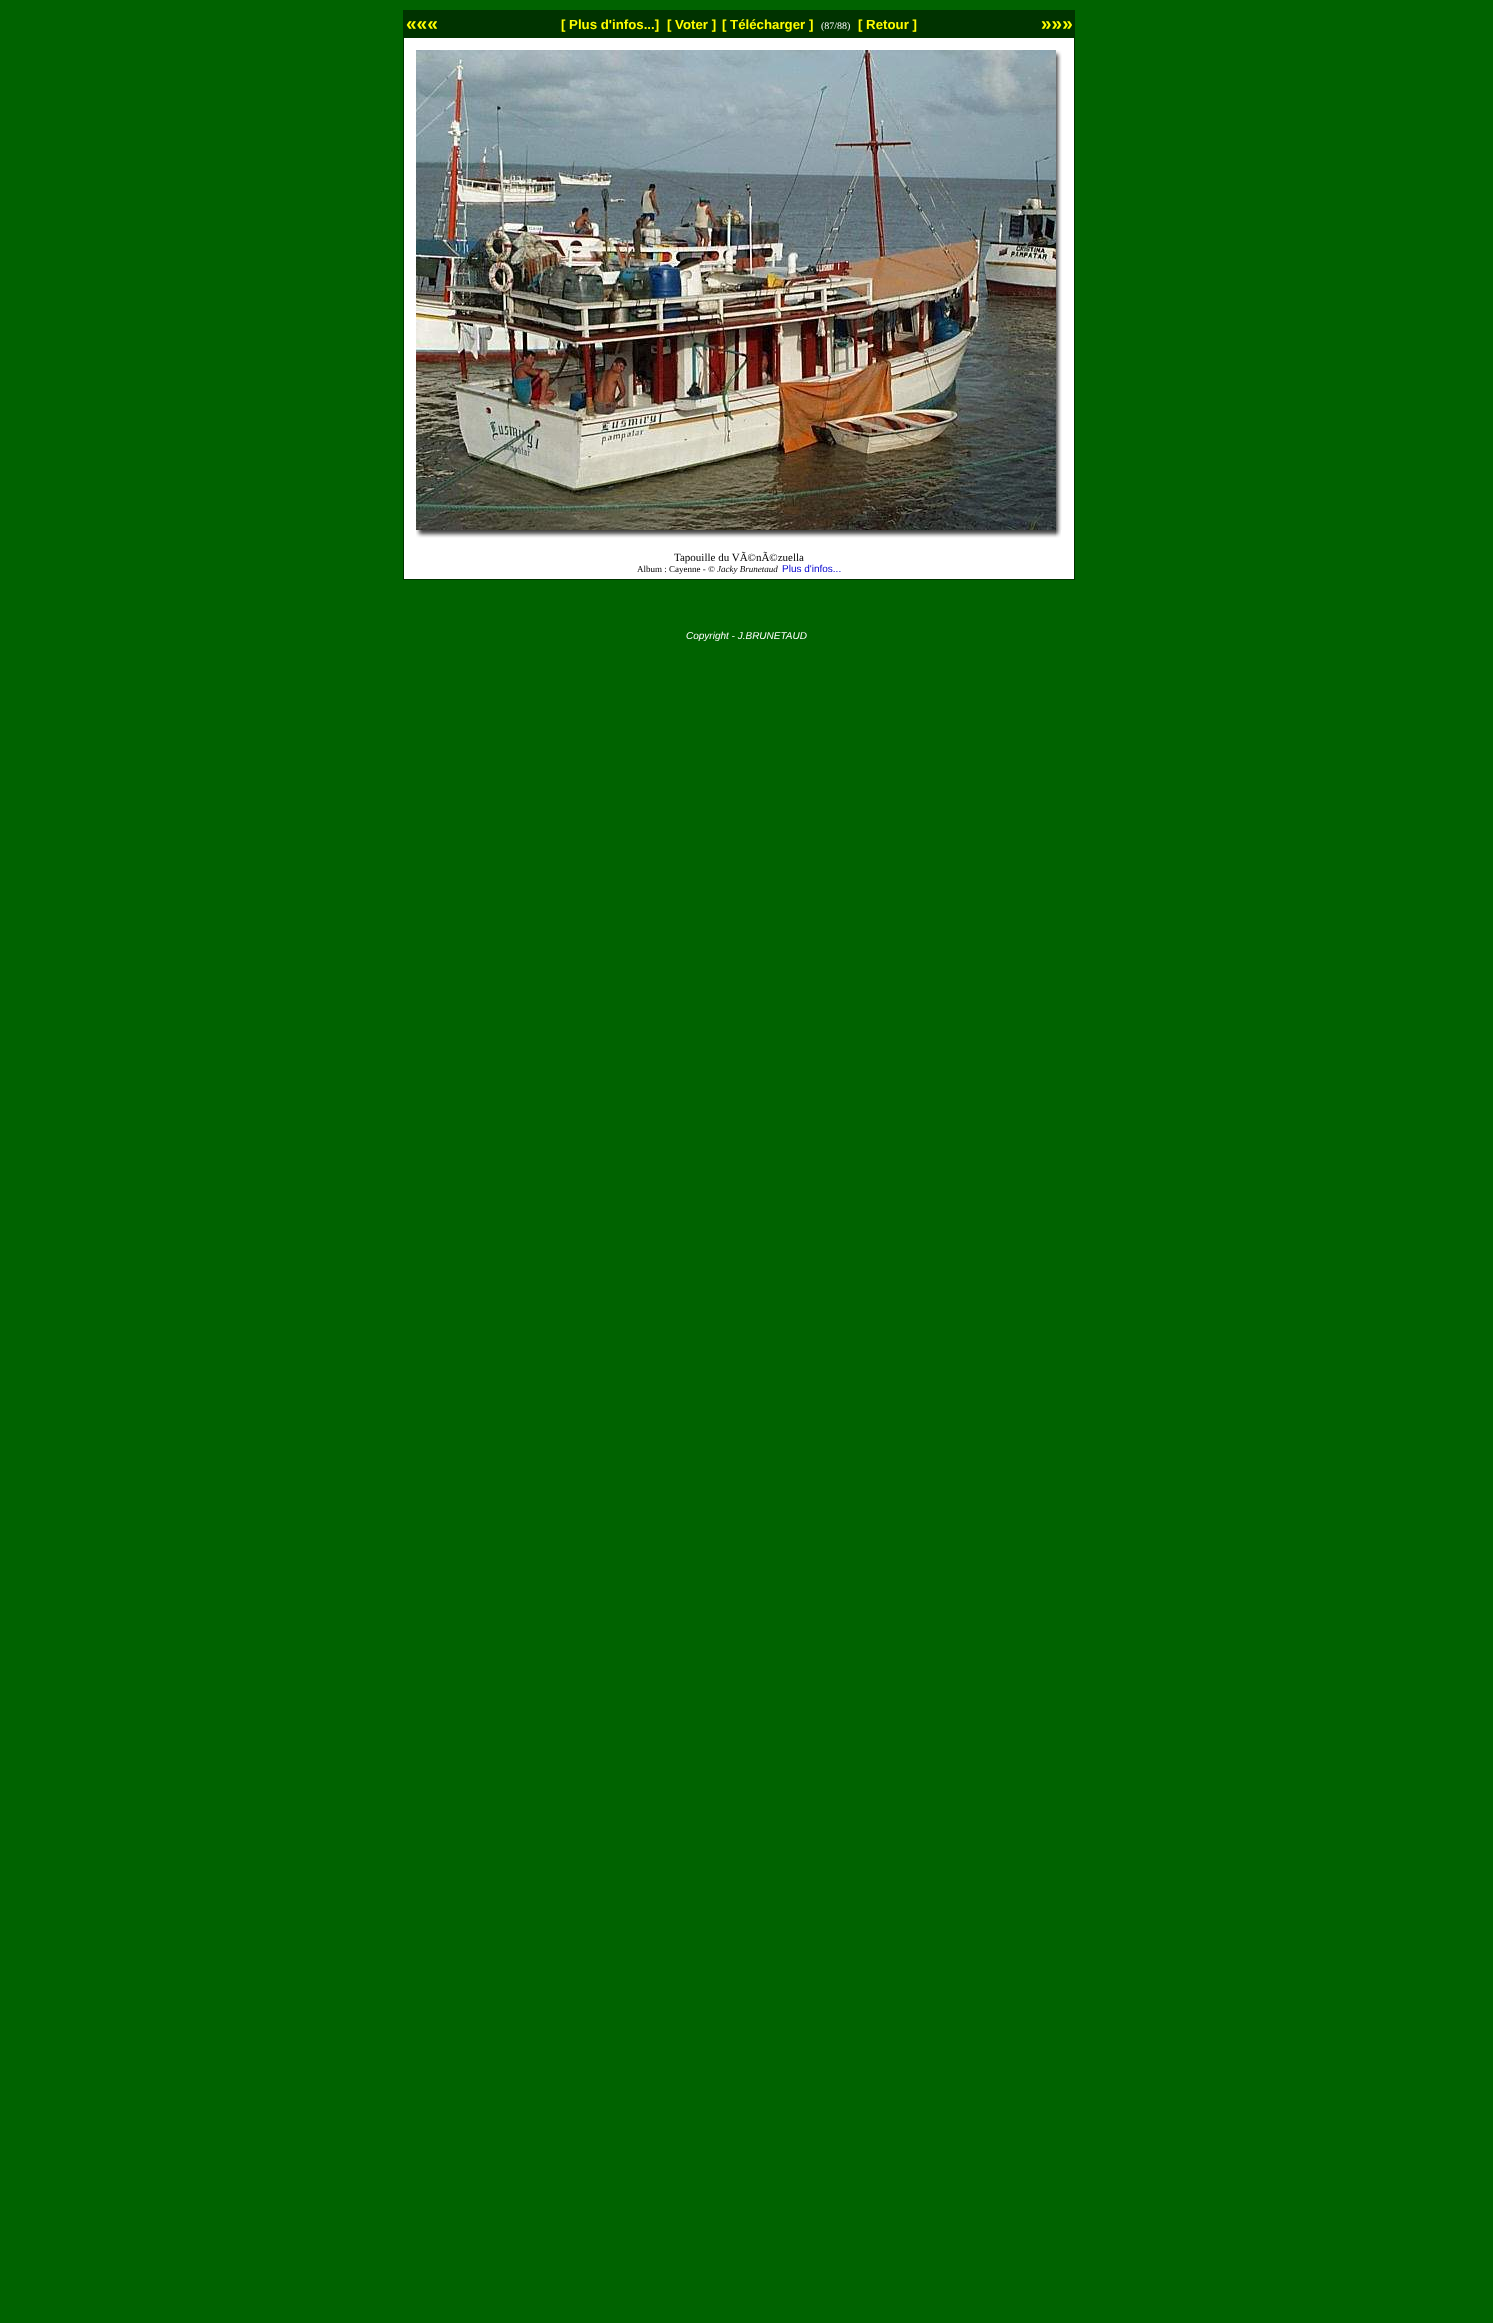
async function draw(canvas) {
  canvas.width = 1493
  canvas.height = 2323
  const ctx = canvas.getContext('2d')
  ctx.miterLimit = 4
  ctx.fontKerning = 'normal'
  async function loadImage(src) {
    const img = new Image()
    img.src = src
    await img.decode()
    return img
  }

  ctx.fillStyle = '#006300'
  ctx.fillRect(0, 0, 1493, 2323)
  ctx.fillStyle = '#030'
  ctx.fillRect(403, 10, 672, 570)
  ctx.font = 'bold 19px Liberation Sans'
  ctx.fillStyle = '#ff0'
  ctx.fillText('«««', 406, 30)
  ctx.font = 'bold 13.25px Liberation Sans'
  ctx.fillText('[ Plus d\'infos...]', 561, 29)
  ctx.fillText('[ Voter ]', 667, 29)
  ctx.fillText('[ Télécharger ]', 722, 29)
  ctx.font = '10px Liberation Serif'
  ctx.fillStyle = '#fff'
  ctx.fillText('(87/88)', 821, 29)
  ctx.font = 'bold 13.25px Liberation Sans'
  ctx.fillStyle = '#ff0'
  ctx.fillText('[ Retour ]', 858, 29)
  ctx.font = 'bold 19px Liberation Sans'
  ctx.fillText('»»»', 1041, 30)
  ctx.fillStyle = '#fff'
  ctx.fillRect(404, 38, 670, 541)
  ctx.drawImage(await loadImage('image0.png'), 416, 50, 640, 480)
  ctx.drawImage(await loadImage('image1.png'), 1056, 50, 6, 8)
  ctx.drawImage(await loadImage('image2.png'), 1056, 58, 6, 472)
  ctx.drawImage(await loadImage('image3.png'), 416, 530, 7, 8)
  ctx.drawImage(await loadImage('image4.png'), 423, 530, 633, 8)
  ctx.drawImage(await loadImage('image5.png'), 1056, 530, 5, 8)
  ctx.font = '11px Liberation Serif'
  ctx.fillStyle = '#000'
  ctx.fillText('Tapouille du VÃ©nÃ©zuella', 674, 561)
  ctx.font = '9px Liberation Serif'
  ctx.fillText('Album : Cayenne -', 637, 572)
  ctx.font = 'italic 9px Liberation Serif'
  ctx.fillText('© Jacky Brunetaud', 708, 572)
  ctx.font = '10px Liberation Sans'
  ctx.fillStyle = '#00c'
  ctx.fillText('Plus d\'infos...', 782, 572)
  ctx.font = 'italic 10px Liberation Sans'
  ctx.fillStyle = '#fff'
  ctx.fillText('Copyright - J.BRUNETAUD', 686, 639)
}

draw(document.querySelector('canvas'))
